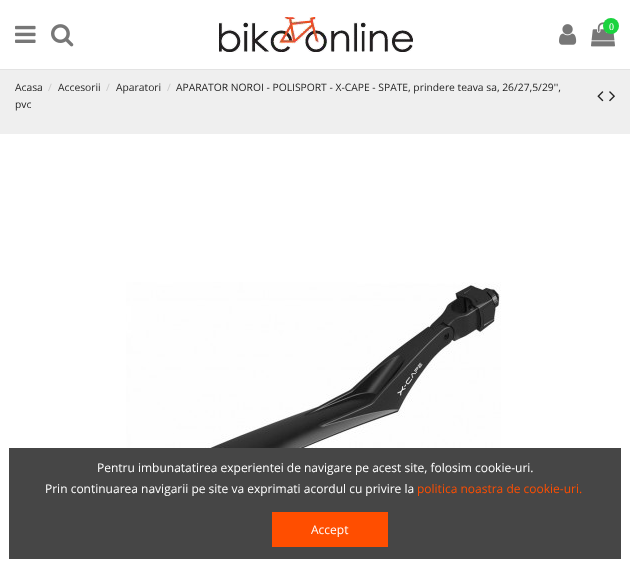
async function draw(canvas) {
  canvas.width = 630
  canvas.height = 571
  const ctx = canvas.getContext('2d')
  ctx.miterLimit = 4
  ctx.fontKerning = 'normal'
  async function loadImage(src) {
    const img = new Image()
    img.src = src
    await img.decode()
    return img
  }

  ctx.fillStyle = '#fff'
  ctx.fillRect(0, 0, 630, 571)
  ctx.fillStyle = '#e3e3e3'
  ctx.fillRect(0, 69, 630, 1)
  ctx.drawImage(await loadImage('image0.png'), 15, 25, 21, 18)
  ctx.drawImage(await loadImage('image1.png'), 51, 24, 23, 23)
  ctx.drawImage(await loadImage('image2.png'), 219, 17, 194, 35)
  ctx.drawImage(await loadImage('image3.png'), 559, 24, 18, 21)
  ctx.drawImage(await loadImage('image4.png'), 591, 22, 24, 25)
  ctx.fillStyle = '#1bd33f'
  ctx.beginPath()
  ctx.arc(611, 26, 8, 0, 2 * Math.PI)
  ctx.fill()
  ctx.font = '10px Liberation Serif'
  ctx.fillStyle = '#fff'
  ctx.fillText('0', 609, 30)
  ctx.fillStyle = '#efefef'
  ctx.fillRect(0, 70, 630, 64)
  ctx.font = '10.3px Open Sans'
  ctx.fillStyle = '#232323'
  ctx.fillText('Acasa', 15, 91)
  ctx.fillStyle = '#c9c9c9'
  ctx.fillText('/', 48, 91)
  ctx.fillStyle = '#232323'
  ctx.fillText('Accesorii', 58, 91)
  ctx.fillStyle = '#c9c9c9'
  ctx.fillText('/', 106, 91)
  ctx.fillStyle = '#232323'
  ctx.fillText('Aparatori', 116, 91)
  ctx.fillStyle = '#c9c9c9'
  ctx.fillText('/', 167, 91)
  ctx.fillStyle = '#232323'
  ctx.fillText('APARATOR NOROI - POLISPORT - X-CAPE - SPATE, prindere teava sa, 26/27,5/29\'\',', 176, 91)
  ctx.fillText('pvc', 15, 108)
  ctx.drawImage(await loadImage('image5.png'), 597, 91, 7, 11)
  ctx.drawImage(await loadImage('image6.png'), 609, 91, 6, 11)
  ctx.drawImage(await loadImage('image7.png'), 126, 282, 375, 166)
  ctx.fillStyle = '#464646'
  ctx.fillRect(9, 448, 612, 111)
  ctx.font = '12px Open Sans'
  ctx.fillStyle = '#fff'
  ctx.fillText('Pentru imbunatatirea experientei de navigare pe acest site, folosim cookie-uri.', 97, 472)
  ctx.fillText('Prin continuarea navigarii pe site va exprimati acordul cu privire la', 45, 493)
  ctx.fillStyle = '#ff4e00'
  ctx.fillText('politica noastra de cookie-uri.', 417, 493)
  ctx.fillRect(272, 512, 116, 35)
  ctx.fillStyle = '#fff'
  ctx.fillText('Accept', 311, 534)
}

draw(document.querySelector('canvas'))
